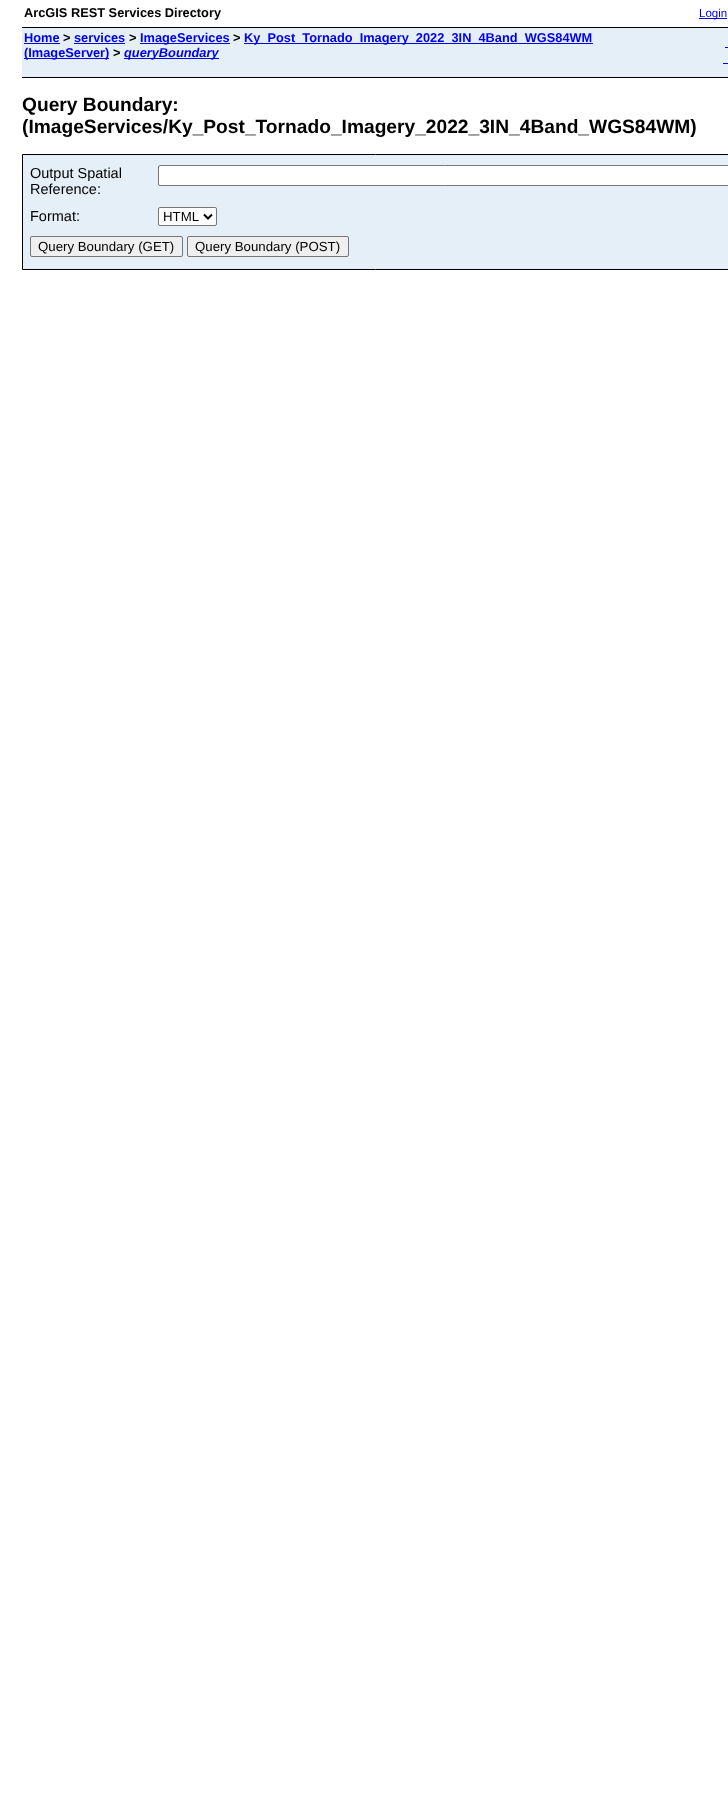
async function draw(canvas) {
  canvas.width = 728
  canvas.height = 1820
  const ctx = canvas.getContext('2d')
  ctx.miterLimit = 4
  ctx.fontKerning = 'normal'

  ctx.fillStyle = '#fff'
  ctx.fillRect(0, 0, 728, 1820)
  ctx.font = 'bold 12.8px Liberation Sans'
  ctx.fillStyle = '#000'
  ctx.fillText('ArcGIS REST Services Directory', 24, 17)
  ctx.fillStyle = '#00e'
  ctx.fillRect(699, 18, 28, 1)
  ctx.font = '11.5px Liberation Sans'
  ctx.fillText('Login', 699, 17)
  ctx.fillStyle = '#e5eff7'
  ctx.fillRect(22, 28, 706, 49)
  ctx.fillStyle = '#000'
  ctx.fillRect(22, 27, 706, 1)
  ctx.fillRect(22, 77, 706, 1)
  ctx.font = 'bold 12.8px Liberation Sans'
  ctx.fillStyle = '#00e'
  ctx.fillText('Home', 24, 42)
  ctx.fillRect(24, 43, 36, 1)
  ctx.fillStyle = '#000'
  ctx.fillText('>', 63, 42)
  ctx.fillStyle = '#00e'
  ctx.fillText('services', 74, 42)
  ctx.fillRect(74, 43, 51, 1)
  ctx.fillStyle = '#000'
  ctx.fillText('>', 129, 42)
  ctx.fillStyle = '#00e'
  ctx.fillRect(140, 43, 90, 1)
  ctx.fillText('ImageServices', 140, 42)
  ctx.fillStyle = '#000'
  ctx.fillText('>', 233, 42)
  ctx.fillStyle = '#00e'
  ctx.fillRect(244, 43, 349, 1)
  ctx.fillText('Ky_Post_Tornado_Imagery_2022_3IN_4Band_WGS84WM', 244, 42)
  ctx.fillRect(24, 58, 85, 1)
  ctx.fillText('(ImageServer)', 24, 57)
  ctx.fillStyle = '#000'
  ctx.fillText('>', 113, 57)
  ctx.fillStyle = '#00e'
  ctx.fillRect(124, 58, 95, 1)
  ctx.font = 'italic bold 12.8px Liberation Sans'
  ctx.fillText('queryBoundary', 124, 57)
  ctx.fillRect(725, 47, 3, 1)
  ctx.fillRect(723, 63, 5, 1)
  ctx.font = 'bold 19.2px Liberation Sans'
  ctx.fillStyle = '#000'
  ctx.fillText('Query Boundary:', 22, 111)
  ctx.fillText('(ImageServices/Ky_Post_Tornado_Imagery_2022_3IN_4Band_WGS84WM)', 22, 133)
  ctx.fillStyle = '#e5eff7'
  ctx.beginPath()
  ctx.rect(22.5, 154.5, 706, 115)
  ctx.fill()
  ctx.strokeStyle = '#000'
  ctx.stroke()
  ctx.font = '14.5px Liberation Sans'
  ctx.fillStyle = '#000'
  ctx.fillText('Output Spatial', 30, 178)
  ctx.fillText('Reference:', 30, 194)
  ctx.fillStyle = '#fff'
  ctx.beginPath()
  ctx.roundRect(158.5, 165.5, 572, 20, 1.5)
  ctx.fill()
  ctx.strokeStyle = '#767676'
  ctx.stroke()
  ctx.fillStyle = '#000'
  ctx.fillText('Format:', 30, 221)
  ctx.fillStyle = '#fff'
  ctx.beginPath()
  ctx.roundRect(158.5, 207.5, 58, 18, 1.5)
  ctx.fill()
  ctx.stroke()
  ctx.beginPath()
  ctx.moveTo(204, 214.5)
  ctx.lineTo(208, 218.5)
  ctx.lineTo(212, 214.5)
  ctx.strokeStyle = '#000'
  ctx.lineWidth = 2
  ctx.stroke()
  ctx.font = '13.25px Liberation Sans'
  ctx.fillStyle = '#000'
  ctx.fillText('HTML', 163, 221)
  ctx.fillStyle = '#efefef'
  ctx.beginPath()
  ctx.roundRect(30.5, 236.5, 152, 20, 1.5)
  ctx.fill()
  ctx.strokeStyle = '#767676'
  ctx.lineWidth = 1
  ctx.stroke()
  ctx.fillStyle = '#000'
  ctx.fillText('Query Boundary (GET)', 38, 251)
  ctx.fillStyle = '#efefef'
  ctx.beginPath()
  ctx.roundRect(187.5, 236.5, 161, 20, 1.5)
  ctx.fill()
  ctx.stroke()
  ctx.fillStyle = '#000'
  ctx.fillText('Query Boundary (POST)', 195, 251)
}

draw(document.querySelector('canvas'))
